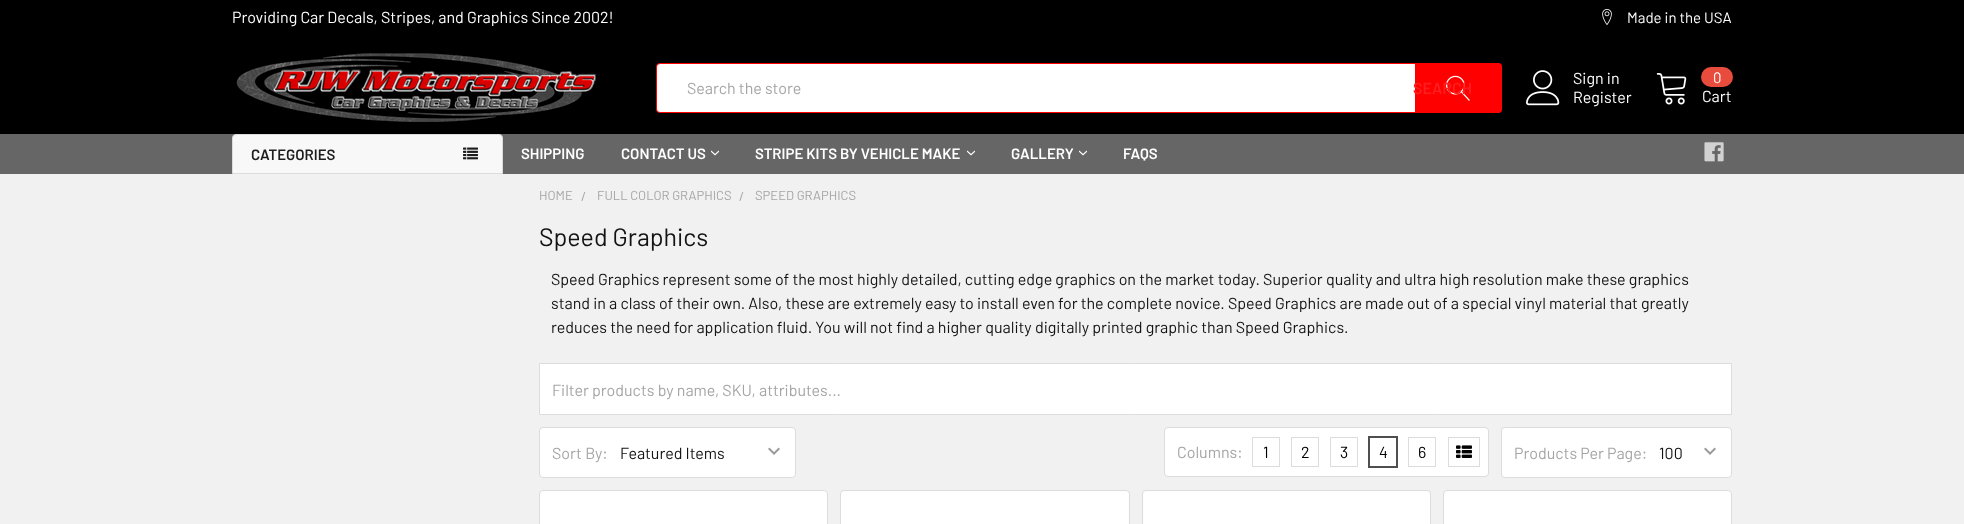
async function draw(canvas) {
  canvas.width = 1964
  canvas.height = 524
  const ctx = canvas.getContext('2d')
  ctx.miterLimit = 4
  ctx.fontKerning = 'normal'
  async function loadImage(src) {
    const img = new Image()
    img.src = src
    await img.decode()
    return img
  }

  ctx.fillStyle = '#f1f1f2'
  ctx.fillRect(0, 0, 1964, 524)
  ctx.fillStyle = '#000'
  ctx.fillRect(0, 0, 1964, 134)
  ctx.font = '16px Barlow'
  ctx.fillStyle = '#fff'
  ctx.fillText('Providing Car Decals, Stripes, and Graphics Since 2002!', 232, 23)
  ctx.drawImage(await loadImage('image0.png'), 1602, 9, 10, 16)
  ctx.font = '15px Barlow'
  ctx.fillText('Made in the USA', 1627, 23)
  ctx.drawImage(await loadImage('image1.png'), 236, 53, 360, 69)
  ctx.beginPath()
  ctx.roundRect(656.5, 63.5, 845, 49, 3.5)
  ctx.fill()
  ctx.strokeStyle = '#f00'
  ctx.stroke()
  ctx.fillStyle = '#f00'
  ctx.beginPath()
  ctx.roundRect(1415, 63, 87, 50, [0, 4, 4, 0])
  ctx.fill()
  ctx.drawImage(await loadImage('image2.png'), 1446, 75, 24, 26)
  ctx.font = '16px Barlow'
  ctx.fillStyle = '#a5a5a5'
  ctx.fillText('Search the store', 687, 94)
  ctx.font = '600 16px Barlow'
  ctx.fillStyle = '#ff1d1d'
  ctx.fillText('SEARCH', 1413, 94)
  ctx.drawImage(await loadImage('image3.png'), 1526, 70, 34, 36)
  ctx.font = '16px Barlow'
  ctx.fillStyle = '#fff'
  ctx.fillText('Sign in', 1573, 84)
  ctx.fillText('Register', 1573, 103)
  ctx.drawImage(await loadImage('image4.png'), 1656, 73, 31, 32)
  ctx.fillStyle = '#e74c3c'
  ctx.beginPath()
  ctx.roundRect(1701, 67, 32, 20, 10)
  ctx.fill()
  ctx.font = '15px Barlow'
  ctx.fillStyle = '#fff'
  ctx.fillText('0', 1713, 83)
  ctx.font = '16px Barlow'
  ctx.fillText('Cart', 1702, 102)
  ctx.fillStyle = '#666'
  ctx.fillRect(0, 134, 1964, 40)
  ctx.fillStyle = '#f8f8f8'
  ctx.beginPath()
  ctx.roundRect(232.5, 134.5, 270, 39, [3.5, 3.5, 0, 0])
  ctx.fill()
  ctx.strokeStyle = '#dcdcdc'
  ctx.stroke()
  ctx.font = '600 15px Barlow'
  ctx.fillStyle = '#1d1d1d'
  ctx.fillText('CATEGORIES', 251, 160)
  ctx.drawImage(await loadImage('image5.png'), 463, 147, 15, 13)
  ctx.fillStyle = '#fff'
  ctx.fillText('SHIPPING', 521, 159)
  ctx.fillText('CONTACT US', 621, 159)
  ctx.drawImage(await loadImage('image6.png'), 711, 150, 8, 6)
  ctx.fillText('STRIPE KITS BY VEHICLE MAKE', 755, 159)
  ctx.drawImage(await loadImage('image6.png'), 967, 150, 8, 6)
  ctx.fillText('GALLERY', 1011, 159)
  ctx.drawImage(await loadImage('image6.png'), 1079, 150, 8, 6)
  ctx.fillText('FAQS', 1123, 159)
  ctx.drawImage(await loadImage('image7.png'), 1704, 142, 20, 20)
  ctx.font = '13px Barlow'
  ctx.fillStyle = '#a5a5a5'
  ctx.fillText('HOME', 539, 200)
  ctx.fillText('/', 581, 201)
  ctx.fillText('FULL COLOR GRAPHICS', 597, 200)
  ctx.fillText('/', 739, 201)
  ctx.fillText('SPEED GRAPHICS', 755, 200)
  ctx.font = '25px Barlow'
  ctx.fillStyle = '#131313'
  ctx.fillText('Speed Graphics', 539, 246)
  ctx.font = '16px Barlow'
  ctx.fillText('Speed Graphics represent some of the most highly detailed, cutting edge graphics on the market today. Superior quality and ultra high resolution make these graphics', 551, 285)
  ctx.fillText('stand in a class of their own. Also, these are extremely easy to install even for the complete novice. Speed Graphics are made out of a special vinyl material that greatly', 551, 309)
  ctx.fillText('reduces the need for application fluid. You will not find a higher quality digitally printed graphic than Speed Graphics.', 551, 333)
  ctx.fillStyle = '#fff'
  ctx.beginPath()
  ctx.rect(539.5, 363.5, 1192, 51)
  ctx.fill()
  ctx.stroke()
  ctx.fillStyle = '#a5a5a5'
  ctx.fillText('Filter products by name, SKU, attributes...', 552, 396)
  ctx.fillStyle = '#fff'
  ctx.beginPath()
  ctx.roundRect(539.5, 427.5, 256, 50, 3.5)
  ctx.fill()
  ctx.stroke()
  ctx.fillStyle = '#a5a5a5'
  ctx.fillText('Sort By:', 552, 459)
  ctx.drawImage(await loadImage('image8.png'), 768, 447, 12, 8)
  ctx.fillStyle = '#131313'
  ctx.fillText('Featured Items', 620, 459)
  ctx.fillStyle = '#fff'
  ctx.beginPath()
  ctx.roundRect(1164.5, 427.5, 324, 49, 3.5)
  ctx.fill()
  ctx.stroke()
  ctx.fillStyle = '#a5a5a5'
  ctx.fillText('Columns:', 1177, 458)
  ctx.strokeRect(1252.5, 437.5, 27, 29)
  ctx.fillStyle = '#000'
  ctx.fillText('1', 1263, 458)
  ctx.strokeRect(1291.5, 437.5, 27, 29)
  ctx.fillText('2', 1301, 458)
  ctx.strokeRect(1330.5, 437.5, 27, 29)
  ctx.fillText('3', 1340, 458)
  ctx.strokeStyle = '#4f4f4f'
  ctx.strokeRect(1368.5, 436.5, 29, 31)
  ctx.strokeRect(1369.5, 437.5, 27, 29)
  ctx.fillText('4', 1379, 458)
  ctx.strokeStyle = '#dcdcdc'
  ctx.strokeRect(1408.5, 437.5, 27, 29)
  ctx.fillText('6', 1418, 458)
  ctx.strokeRect(1448.5, 437.5, 31, 29)
  ctx.drawImage(await loadImage('image9.png'), 1456, 445, 16, 13)
  ctx.fillStyle = '#fff'
  ctx.beginPath()
  ctx.roundRect(1501.5, 427.5, 230, 50, 3.5)
  ctx.fill()
  ctx.stroke()
  ctx.fillStyle = '#a5a5a5'
  ctx.fillText('Products Per Page:', 1514, 459)
  ctx.drawImage(await loadImage('image8.png'), 1704, 447, 12, 8)
  ctx.fillStyle = '#131313'
  ctx.fillText('100', 1659, 459)
  ctx.fillStyle = '#fff'
  ctx.beginPath()
  ctx.roundRect(539.5, 490.5, 288, 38, 3.5)
  ctx.fill()
  ctx.stroke()
  ctx.beginPath()
  ctx.roundRect(840.5, 490.5, 289, 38, 3.5)
  ctx.fill()
  ctx.stroke()
  ctx.beginPath()
  ctx.roundRect(1142.5, 490.5, 288, 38, 3.5)
  ctx.fill()
  ctx.stroke()
  ctx.beginPath()
  ctx.roundRect(1443.5, 490.5, 288, 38, 3.5)
  ctx.fill()
  ctx.stroke()
}

draw(document.querySelector('canvas'))
